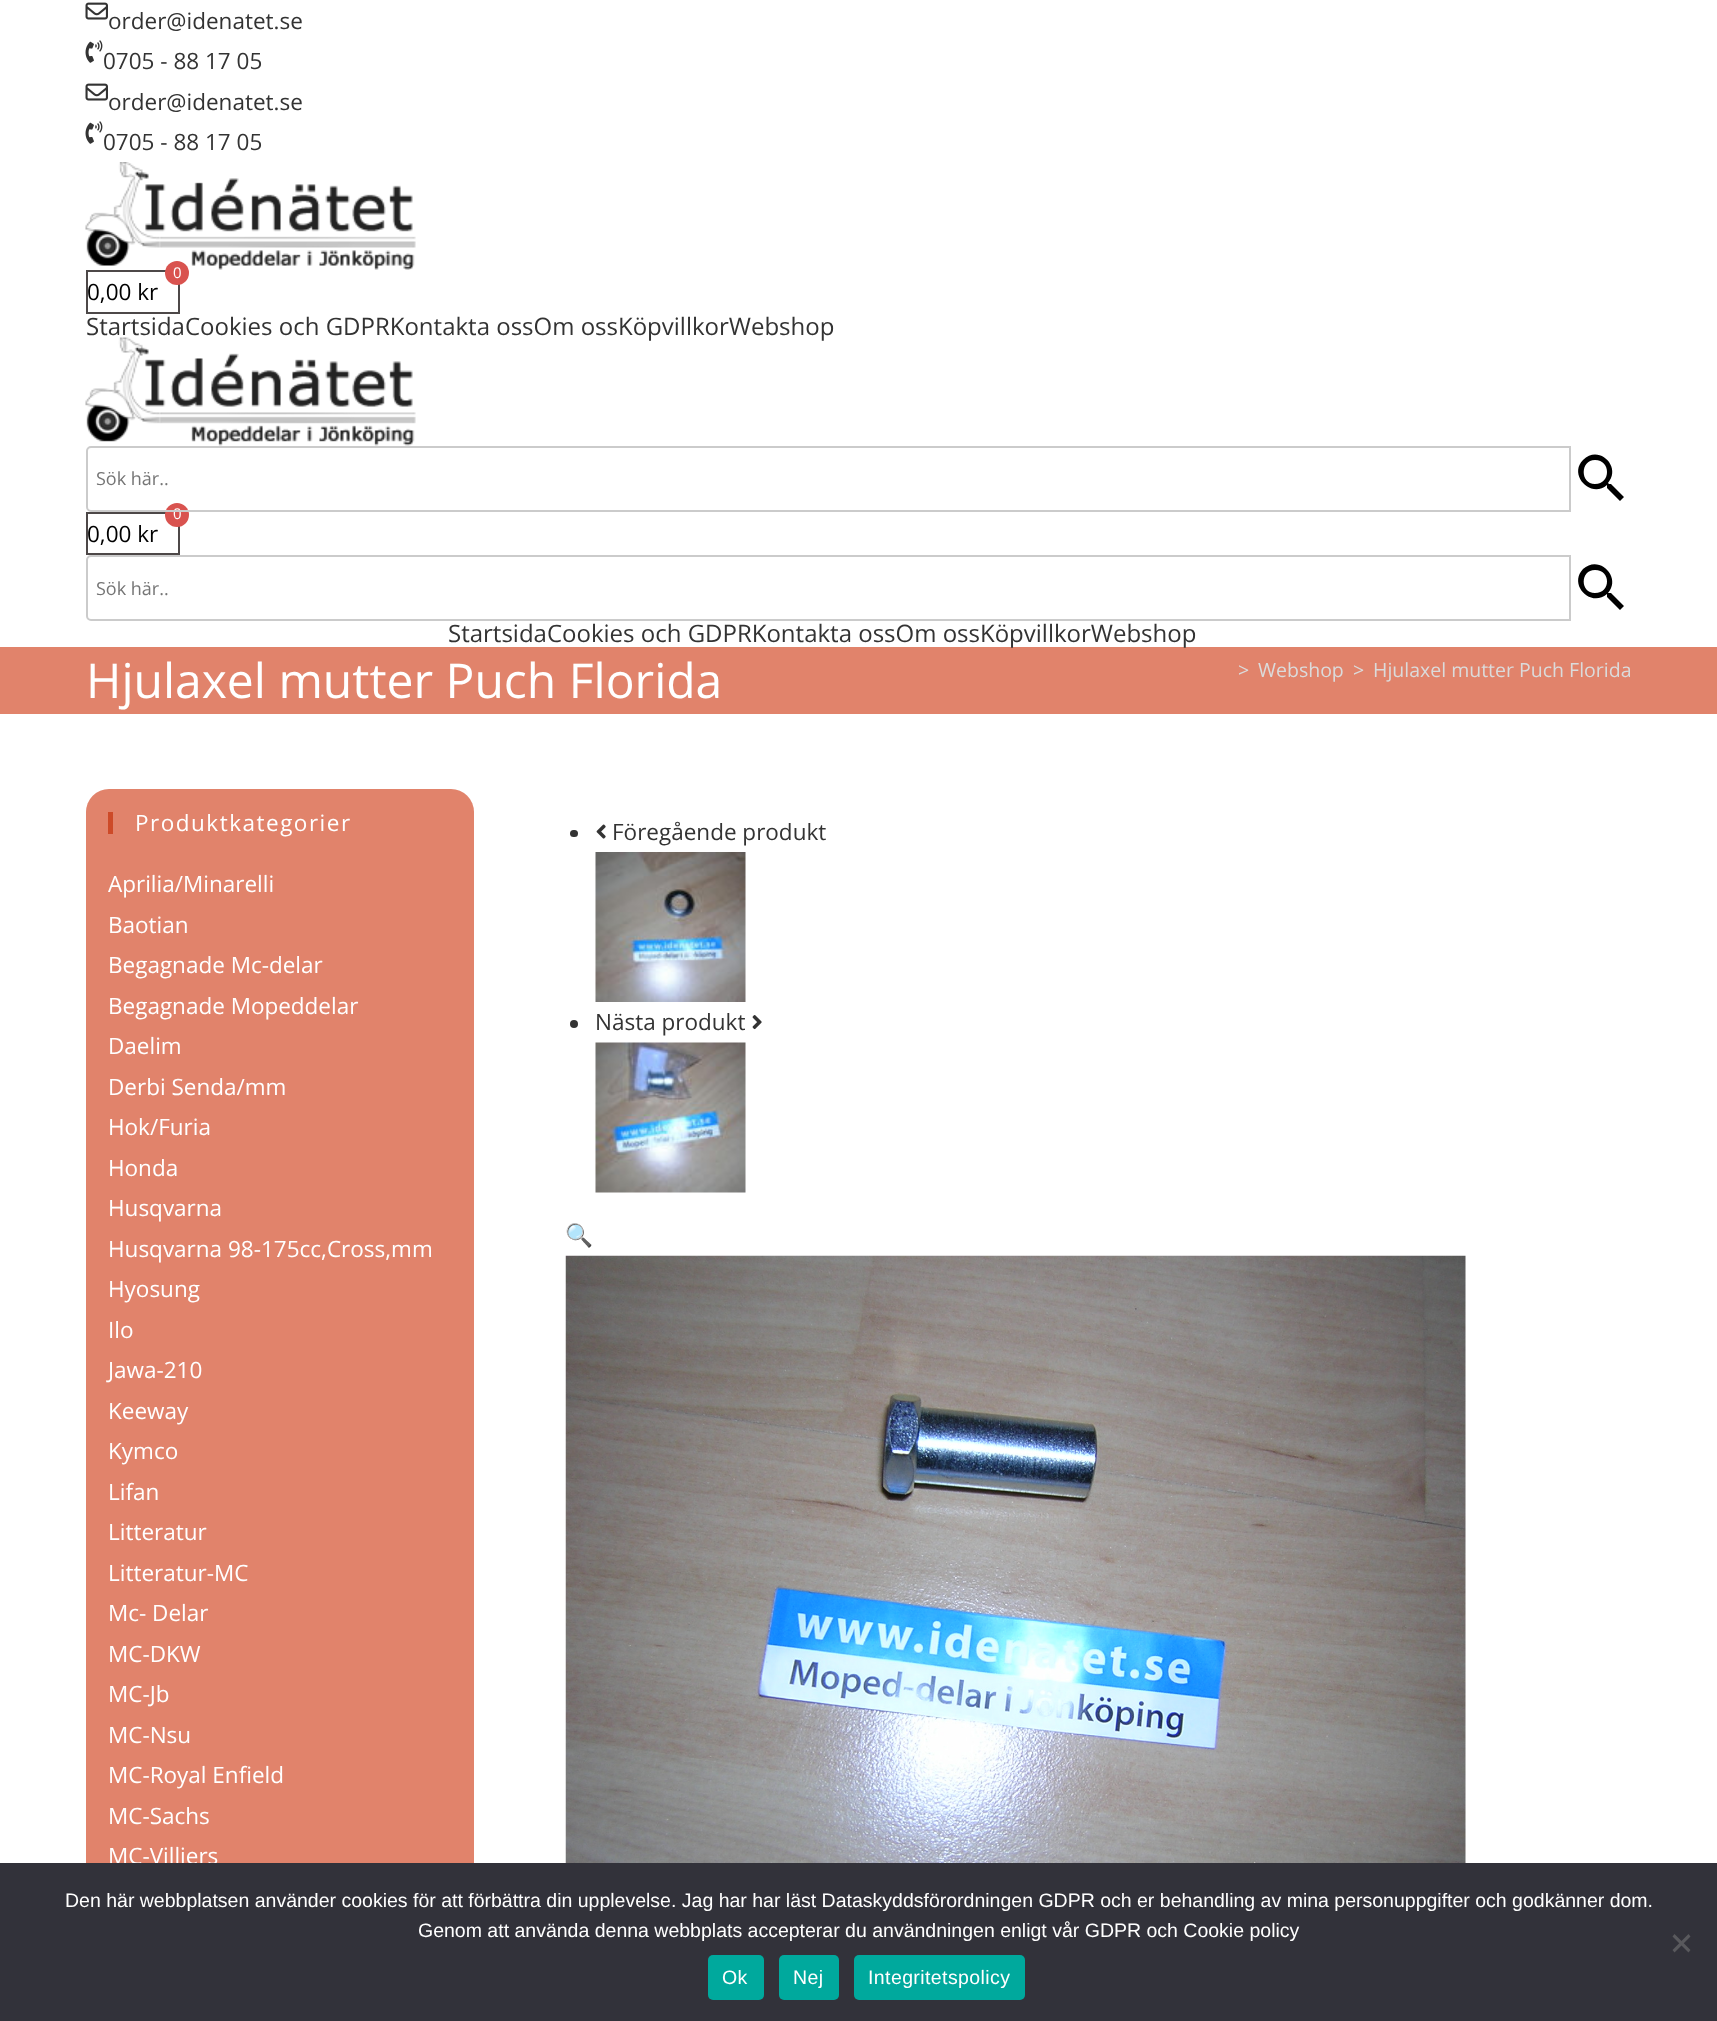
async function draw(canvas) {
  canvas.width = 1717
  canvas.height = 2021
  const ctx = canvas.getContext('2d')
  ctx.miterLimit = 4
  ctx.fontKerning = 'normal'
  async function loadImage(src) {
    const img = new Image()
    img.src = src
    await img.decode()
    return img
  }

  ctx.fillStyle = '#fff'
  ctx.fillRect(0, 0, 1717, 2021)
  ctx.drawImage(await loadImage('image0.png'), 85, 2, 23, 18)
  ctx.font = '22.5px Open Sans'
  ctx.fillStyle = '#333'
  ctx.fillText('order@idenatet.se', 108, 29)
  ctx.drawImage(await loadImage('image1.png'), 85, 40, 18, 23)
  ctx.fillText('0705 - 88 17 05', 103, 69)
  ctx.drawImage(await loadImage('image0.png'), 85, 83, 23, 18)
  ctx.fillText('order@idenatet.se', 108, 110)
  ctx.drawImage(await loadImage('image1.png'), 85, 121, 18, 23)
  ctx.fillText('0705 - 88 17 05', 103, 150)
  ctx.drawImage(await loadImage('image2.png'), 85, 162, 331, 108)
  ctx.strokeStyle = '#4d4848'
  ctx.lineWidth = 2
  ctx.strokeRect(87, 271, 92, 42)
  ctx.fillStyle = '#d9534f'
  ctx.beginPath()
  ctx.arc(177, 273, 12, 0, 2 * Math.PI)
  ctx.fill()
  ctx.font = '15px Open Sans'
  ctx.fillStyle = '#fff'
  ctx.fillText('0', 173, 278)
  ctx.font = '22.5px Open Sans'
  ctx.fillStyle = '#000'
  ctx.fillText('0,00 kr', 87, 300)
  ctx.drawImage(await loadImage('image3.png'), 85, 337, 331, 109)
  ctx.font = '24px Open Sans'
  ctx.fillStyle = '#333'
  ctx.fillText('StartsidaCookies och GDPRKontakta ossOm ossKöpvillkorWebshop', 86, 335)
  ctx.strokeRect(87, 513, 92, 41)
  ctx.fillStyle = '#d9534f'
  ctx.beginPath()
  ctx.arc(177, 515, 12, 0, 2 * Math.PI)
  ctx.fill()
  ctx.font = '15px Open Sans'
  ctx.fillStyle = '#fff'
  ctx.fillText('0', 173, 519)
  ctx.beginPath()
  ctx.roundRect(87, 447, 1483, 64, [4, 0, 0, 4])
  ctx.strokeStyle = '#cbcbcb'
  ctx.stroke()
  ctx.font = '18px Open Sans'
  ctx.fillStyle = '#757575'
  ctx.fillText('Sök här..', 96, 485)
  ctx.fillStyle = '#000'
  ctx.beginPath()
  ctx.moveTo(1611, 484)
  ctx.lineTo(1609, 484)
  ctx.lineTo(1608, 483)
  ctx.bezierCurveTo(1622, 467, 1599, 444, 1583, 460)
  ctx.bezierCurveTo(1568, 475, 1591, 499, 1607, 485)
  ctx.lineTo(1607, 486)
  ctx.lineTo(1607, 488)
  ctx.lineTo(1620, 501)
  ctx.lineTo(1624, 497)
  ctx.closePath()
  ctx.moveTo(1595, 484)
  ctx.bezierCurveTo(1580, 484, 1580, 460, 1595, 460)
  ctx.bezierCurveTo(1611, 460, 1611, 484, 1595, 484)
  ctx.closePath()
  ctx.fill()
  ctx.font = '22.5px Open Sans'
  ctx.fillText('0,00 kr', 87, 542)
  ctx.beginPath()
  ctx.roundRect(87, 556, 1483, 64, [4, 0, 0, 4])
  ctx.stroke()
  ctx.font = '18px Open Sans'
  ctx.fillStyle = '#757575'
  ctx.fillText('Sök här..', 96, 595)
  ctx.fillStyle = '#000'
  ctx.beginPath()
  ctx.moveTo(1611, 593)
  ctx.lineTo(1609, 593)
  ctx.lineTo(1608, 593)
  ctx.bezierCurveTo(1622, 577, 1599, 554, 1583, 569)
  ctx.bezierCurveTo(1568, 585, 1591, 608, 1607, 594)
  ctx.lineTo(1607, 595)
  ctx.lineTo(1607, 597)
  ctx.lineTo(1620, 610)
  ctx.lineTo(1624, 606)
  ctx.closePath()
  ctx.moveTo(1595, 593)
  ctx.bezierCurveTo(1580, 593, 1580, 570, 1595, 570)
  ctx.bezierCurveTo(1611, 570, 1611, 593, 1595, 593)
  ctx.closePath()
  ctx.fill()
  ctx.fillStyle = '#e1836b'
  ctx.fillRect(0, 647, 1717, 67)
  ctx.font = '24px Open Sans'
  ctx.fillStyle = '#333'
  ctx.fillText('StartsidaCookies och GDPRKontakta ossOm ossKöpvillkorWebshop', 448, 642)
  ctx.font = '48px Open Sans'
  ctx.fillStyle = '#fff'
  ctx.fillText('Hjulaxel mutter Puch Florida', 86, 698)
  ctx.font = '19.5px Open Sans'
  ctx.fillStyle = '#dbdbdb'
  ctx.fillText('>', 1238, 677)
  ctx.fillText('Webshop', 1258, 677)
  ctx.fillText('>', 1353, 677)
  ctx.fillText('Hjulaxel mutter Puch Florida', 1373, 677)
  ctx.fillStyle = '#e1836b'
  ctx.beginPath()
  ctx.roundRect(86, 789, 388, 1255, 23)
  ctx.fill()
  ctx.fillStyle = '#cd4a28'
  ctx.fillRect(108, 812, 5, 22)
  ctx.letterSpacing = '1.5px'
  ctx.font = '22.5px Open Sans'
  ctx.fillStyle = '#fff'
  ctx.fillText('Produktkategorier', 135, 831)
  ctx.letterSpacing = '0px'
  ctx.fillText('Aprilia/Minarelli', 108, 892)
  ctx.fillText('Baotian', 108, 933)
  ctx.fillText('Begagnade Mc-delar', 108, 973)
  ctx.fillText('Begagnade Mopeddelar', 108, 1014)
  ctx.fillText('Daelim', 108, 1054)
  ctx.fillText('Derbi Senda/mm', 108, 1095)
  ctx.fillText('Hok/Furia', 108, 1135)
  ctx.fillText('Honda', 108, 1176)
  ctx.fillText('Husqvarna', 108, 1216)
  ctx.fillText('Husqvarna 98-175cc,Cross,mm', 108, 1257)
  ctx.fillText('Hyosung', 108, 1297)
  ctx.fillText('Ilo', 108, 1338)
  ctx.fillText('Jawa-210', 108, 1378)
  ctx.fillText('Keeway', 108, 1419)
  ctx.fillText('Kymco', 108, 1459)
  ctx.fillText('Lifan', 108, 1500)
  ctx.fillText('Litteratur', 108, 1540)
  ctx.fillText('Litteratur-MC', 108, 1581)
  ctx.fillText('Mc- Delar', 108, 1621)
  ctx.fillText('MC-DKW', 108, 1662)
  ctx.fillText('MC-Jb', 108, 1702)
  ctx.fillText('MC-Nsu', 108, 1743)
  ctx.fillText('MC-Royal Enfield', 108, 1783)
  ctx.fillText('MC-Sachs', 108, 1824)
  ctx.fillText('MC-Villiers', 108, 1864)
  ctx.fillStyle = '#333'
  ctx.beginPath()
  ctx.roundRect(570, 830, 8, 7, 3.5)
  ctx.fill()
  ctx.drawImage(await loadImage('image4.png'), 596, 824, 10, 15)
  ctx.fillText('Föregående produkt', 612, 840)
  ctx.drawImage(await loadImage('image5.png'), 595, 852, 151, 150)
  ctx.beginPath()
  ctx.arc(574, 1024, 4, 0, 2 * Math.PI)
  ctx.fill()
  ctx.fillText('Nästa produkt', 595, 1030)
  ctx.drawImage(await loadImage('image6.png'), 752, 1015, 10, 15)
  ctx.drawImage(await loadImage('image7.png'), 595, 1042, 151, 151)
  ctx.font = '22.5px Noto Color Emoji'
  ctx.fillText('🔍', 565, 1243)
  ctx.drawImage(await loadImage('image8.png'), 565, 1255, 901, 608)
  ctx.fillStyle = '#32323a'
  ctx.fillRect(0, 1863, 1717, 158)
  ctx.font = '19.5px Liberation Sans'
  ctx.fillStyle = '#fff'
  ctx.fillText('Den här webbplatsen använder cookies för att förbättra din upplevelse. Jag har har läst Dataskyddsförordningen GDPR och er behandling av mina personuppgifter och godkänner dom.', 65, 1907)
  ctx.fillText('Genom att använda denna webbplats accepterar du användningen enligt vår GDPR och Cookie policy', 418, 1937)
  ctx.fillStyle = '#59595d'
  ctx.beginPath()
  ctx.moveTo(1688.5, 1934)
  ctx.lineTo(1690.5, 1936.5)
  ctx.lineTo(1674.5, 1952.5)
  ctx.lineTo(1672.5, 1950)
  ctx.closePath()
  ctx.fill()
  ctx.beginPath()
  ctx.moveTo(1672.5, 1936.5)
  ctx.lineTo(1674.5, 1934)
  ctx.lineTo(1690.5, 1950)
  ctx.lineTo(1688.5, 1952.5)
  ctx.closePath()
  ctx.fill()
  ctx.fillStyle = '#00a99d'
  ctx.beginPath()
  ctx.roundRect(708, 1955, 56, 45, 5)
  ctx.fill()
  ctx.letterSpacing = '0.4px'
  ctx.fillStyle = '#fff'
  ctx.fillText('Ok', 722, 1984)
  ctx.fillStyle = '#00a99d'
  ctx.beginPath()
  ctx.roundRect(779, 1955, 60, 45, 5)
  ctx.fill()
  ctx.fillStyle = '#fff'
  ctx.fillText('Nej', 793, 1984)
  ctx.fillStyle = '#00a99d'
  ctx.beginPath()
  ctx.roundRect(854, 1955, 171, 45, 5)
  ctx.fill()
  ctx.fillStyle = '#fff'
  ctx.fillText('Integritetspolicy', 868, 1984)
}

draw(document.querySelector('canvas'))
